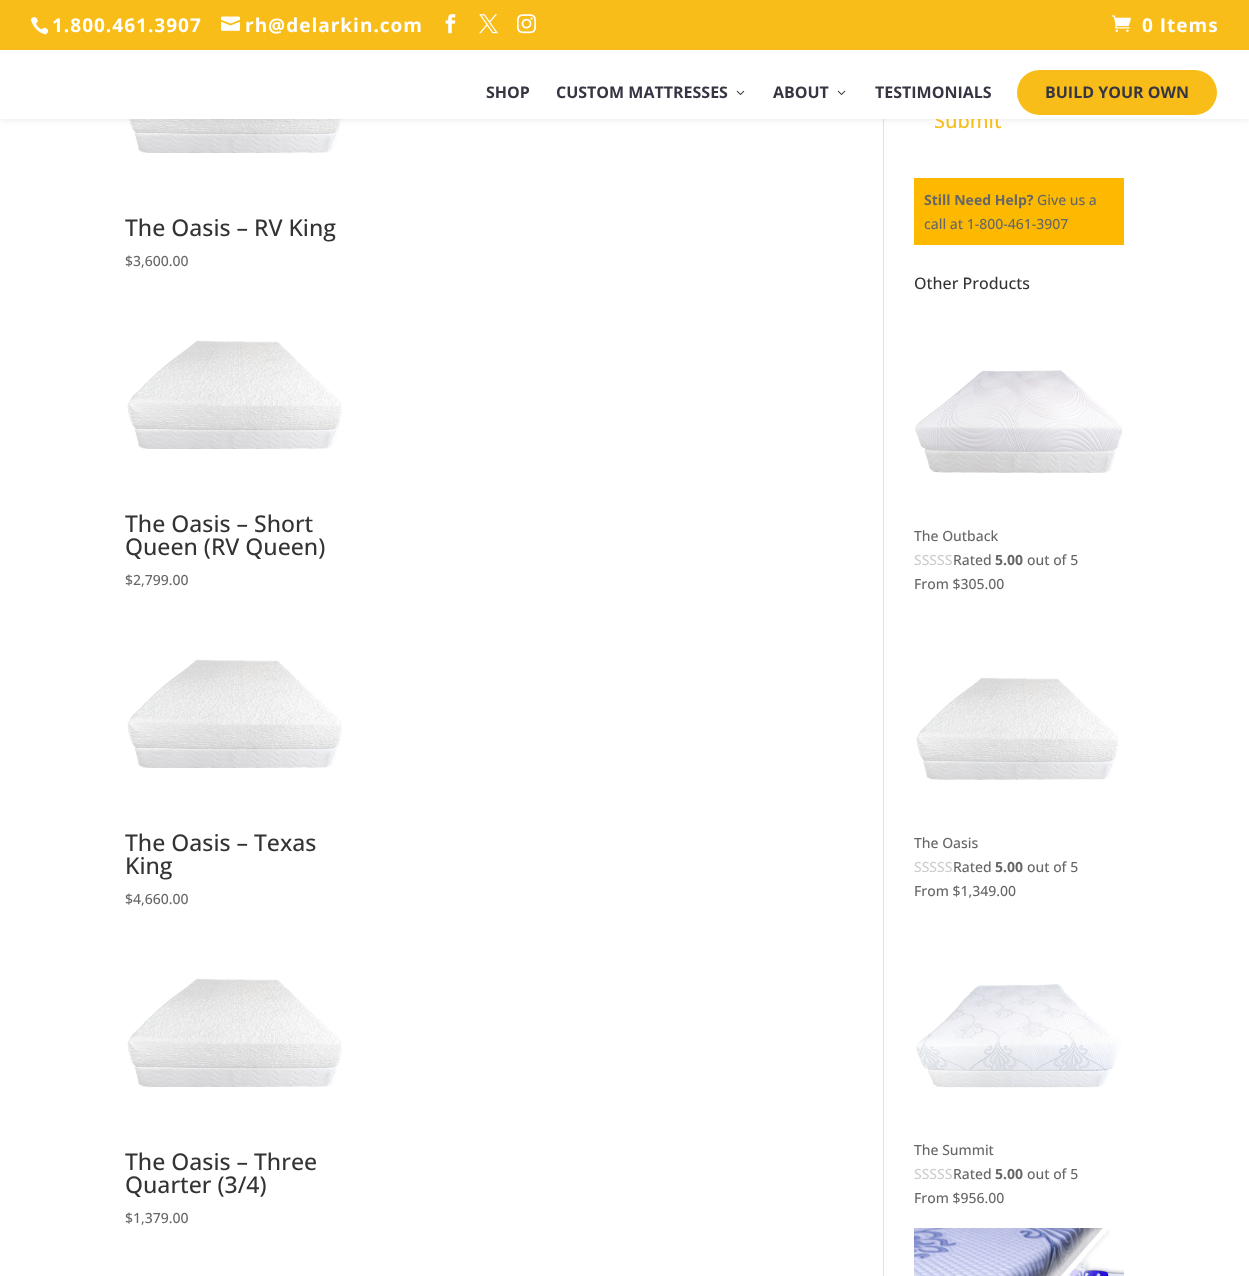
async function draw(canvas) {
  canvas.width = 1249
  canvas.height = 1276
  const ctx = canvas.getContext('2d')
  ctx.miterLimit = 4
  ctx.fontKerning = 'normal'
  async function loadImage(src) {
    const img = new Image()
    img.src = src
    await img.decode()
    return img
  }

  ctx.fillStyle = '#fff'
  ctx.fillRect(0, 0, 1249, 1276)
  ctx.drawImage(await loadImage('image7.png'), 129, 119, 213, 34)
  ctx.fillStyle = '#e2e2e2'
  ctx.fillRect(883, 119, 1, 1157)
  ctx.fillStyle = '#0000001a'
  ctx.filter = 'blur(3.5px)'
  ctx.beginPath()
  ctx.rect(0, 50, 1249, 69)
  ctx.fill()
  ctx.filter = 'none'
  ctx.fillStyle = '#f9bd1a'
  ctx.fillRect(0, 0, 1249, 50)
  ctx.drawImage(await loadImage('image0.png'), 30, 17, 19, 18)
  ctx.letterSpacing = '1px'
  ctx.font = 'bold 19px Open Sans'
  ctx.fillStyle = '#fff'
  ctx.fillText('1.800.461.3907', 52, 32)
  ctx.drawImage(await loadImage('image1.png'), 221, 16, 19, 15)
  ctx.fillText('rh@delarkin.com', 245, 32)
  ctx.drawImage(await loadImage('image2.png'), 445, 14, 11, 20)
  ctx.drawImage(await loadImage('image3.png'), 479, 14, 19, 20)
  ctx.drawImage(await loadImage('image4.png'), 517, 14, 19, 20)
  ctx.drawImage(await loadImage('image5.png'), 1112, 15, 19, 17)
  ctx.fillText('0 Items', 1142, 32)
  ctx.letterSpacing = '0px'
  ctx.font = '500 20px Open Sans'
  ctx.fillStyle = '#f9bd1a'
  ctx.fillText('Submit', 934, 128)
  ctx.fillStyle = '#fff'
  ctx.fillRect(0, 50, 1249, 69)
  ctx.font = 'bold 16px Open Sans'
  ctx.fillStyle = '#363542'
  ctx.fillText('SHOP', 486, 98)
  ctx.fillText('CUSTOM MATTRESSES', 556, 98)
  ctx.drawImage(await loadImage('image6.png'), 736, 90, 9, 5)
  ctx.fillText('ABOUT', 773, 98)
  ctx.drawImage(await loadImage('image6.png'), 837, 90, 9, 5)
  ctx.fillText('TESTIMONIALS', 875, 98)
  ctx.fillStyle = '#f9bd1a'
  ctx.beginPath()
  ctx.roundRect(1017, 70, 200, 45, 22.5)
  ctx.fill()
  ctx.fillStyle = '#363542'
  ctx.fillText('BUILD YOUR OWN', 1045, 98)
  ctx.font = '500 23px Open Sans'
  ctx.fillStyle = '#333'
  ctx.fillText('The Oasis – RV King', 125, 236)
  ctx.font = '500 14px Open Sans'
  ctx.fillStyle = '#666'
  ctx.fillText('$3,600.00', 125, 266)
  ctx.drawImage(await loadImage('image8.png'), 127, 340, 215, 109)
  ctx.font = '500 23px Open Sans'
  ctx.fillStyle = '#333'
  ctx.fillText('The Oasis – Short', 125, 532)
  ctx.fillText('Queen (RV Queen)', 125, 555)
  ctx.font = '500 14px Open Sans'
  ctx.fillStyle = '#666'
  ctx.fillText('$2,799.00', 125, 585)
  ctx.drawImage(await loadImage('image9.png'), 127, 659, 215, 109)
  ctx.font = '500 23px Open Sans'
  ctx.fillStyle = '#333'
  ctx.fillText('The Oasis – Texas', 125, 851)
  ctx.fillText('King', 125, 874)
  ctx.font = '500 14px Open Sans'
  ctx.fillStyle = '#666'
  ctx.fillText('$4,660.00', 125, 904)
  ctx.drawImage(await loadImage('image9.png'), 127, 978, 215, 109)
  ctx.font = '500 23px Open Sans'
  ctx.fillStyle = '#333'
  ctx.fillText('The Oasis – Three', 125, 1170)
  ctx.fillText('Quarter (3/4)', 125, 1193)
  ctx.font = '500 14px Open Sans'
  ctx.fillStyle = '#666'
  ctx.fillText('$1,379.00', 125, 1223)
  ctx.fillStyle = '#fcb900'
  ctx.fillRect(914, 178, 210, 67)
  ctx.font = 'bold 14px Open Sans'
  ctx.fillStyle = '#666'
  ctx.fillText('Still Need Help?', 924, 205)
  ctx.font = '500 14px Open Sans'
  ctx.fillText('Give us a', 1037, 205)
  ctx.fillText('call at 1-800-461-3907', 924, 229)
  ctx.font = '500 16px Open Sans'
  ctx.fillStyle = '#333'
  ctx.fillText('Other Products', 914, 289)
  ctx.drawImage(await loadImage('image10.png'), 915, 370, 208, 103)
  ctx.font = '500 14px Open Sans'
  ctx.fillStyle = '#666'
  ctx.fillText('The Outback', 914, 541)
  ctx.fillStyle = '#ccc'
  ctx.fillText('SSSSS', 914, 565)
  ctx.fillStyle = '#666'
  ctx.fillText('Rated', 953, 565)
  ctx.font = 'bold 14px Open Sans'
  ctx.fillText('5.00', 995, 565)
  ctx.font = '500 14px Open Sans'
  ctx.fillText('out of 5', 1027, 565)
  ctx.fillText('From $305.00', 914, 589)
  ctx.drawImage(await loadImage('image11.png'), 916, 677, 203, 103)
  ctx.fillText('The Oasis', 914, 848)
  ctx.fillStyle = '#ccc'
  ctx.fillText('SSSSS', 914, 872)
  ctx.fillStyle = '#666'
  ctx.fillText('Rated', 953, 872)
  ctx.font = 'bold 14px Open Sans'
  ctx.fillText('5.00', 995, 872)
  ctx.font = '500 14px Open Sans'
  ctx.fillText('out of 5', 1027, 872)
  ctx.fillText('From $1,349.00', 914, 896)
  ctx.drawImage(await loadImage('image12.png'), 916, 984, 205, 104)
  ctx.fillText('The Summit', 914, 1155)
  ctx.fillStyle = '#ccc'
  ctx.fillText('SSSSS', 914, 1179)
  ctx.fillStyle = '#666'
  ctx.fillText('Rated', 953, 1179)
  ctx.font = 'bold 14px Open Sans'
  ctx.fillText('5.00', 995, 1179)
  ctx.font = '500 14px Open Sans'
  ctx.fillText('out of 5', 1027, 1179)
  ctx.fillText('From $956.00', 914, 1203)
  ctx.drawImage(await loadImage('image13.png'), 914, 1228, 210, 48)
}

draw(document.querySelector('canvas'))
